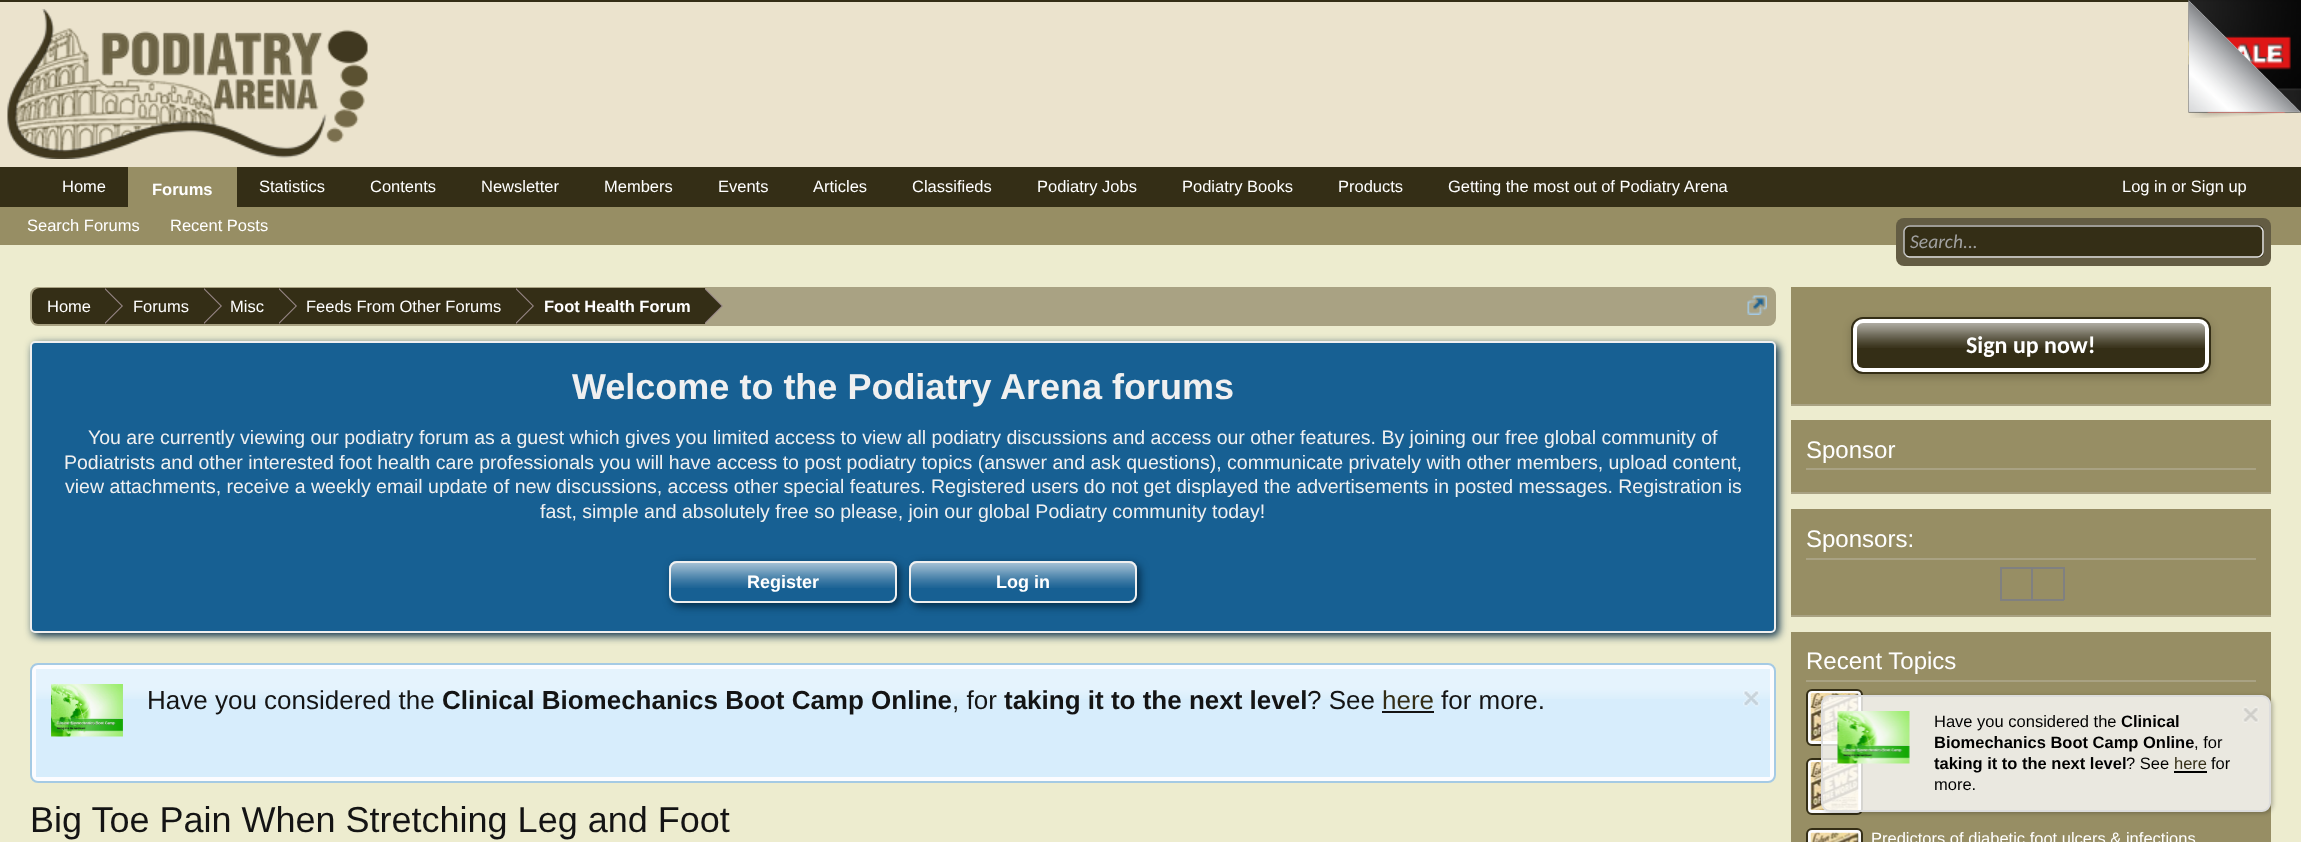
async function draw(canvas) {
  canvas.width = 2301
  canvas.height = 842
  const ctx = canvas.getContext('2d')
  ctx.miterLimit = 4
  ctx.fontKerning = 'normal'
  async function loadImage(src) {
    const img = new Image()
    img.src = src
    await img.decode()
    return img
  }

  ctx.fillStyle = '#edeccf'
  ctx.fillRect(0, 0, 2301, 842)
  ctx.fillStyle = '#342e16'
  ctx.fillRect(0, 0, 2189, 2)
  ctx.fillStyle = '#ebe3cd'
  ctx.fillRect(0, 2, 2301, 165)
  ctx.drawImage(await loadImage('image0.png'), 2188, 0, 113, 113)
  ctx.drawImage(await loadImage('image1.png'), 2188, 0, 113, 118)
  ctx.drawImage(await loadImage('image2.png'), 7, 9, 361, 150)
  ctx.fillStyle = '#342e16'
  ctx.fillRect(0, 167, 2301, 40)
  ctx.font = '16.5px Liberation Sans'
  ctx.fillStyle = '#fff'
  ctx.fillText('Home', 62, 192)
  ctx.fillText('Statistics', 259, 192)
  ctx.fillText('Contents', 370, 192)
  ctx.fillText('Newsletter', 481, 192)
  ctx.fillText('Members', 604, 192)
  ctx.fillText('Events', 718, 192)
  ctx.fillText('Articles', 813, 192)
  ctx.fillText('Classifieds', 912, 192)
  ctx.fillText('Podiatry Jobs', 1037, 192)
  ctx.fillText('Podiatry Books', 1182, 192)
  ctx.fillText('Products', 1338, 192)
  ctx.fillText('Getting the most out of Podiatry Arena', 1448, 192)
  ctx.fillStyle = '#978e64'
  ctx.fillRect(128, 167, 109, 40)
  ctx.font = 'bold 16.5px Liberation Sans'
  ctx.fillStyle = '#fff'
  ctx.fillText('Forums', 152, 195)
  ctx.fillStyle = '#978e64'
  ctx.fillRect(0, 207, 2301, 38)
  ctx.font = '16.5px Liberation Sans'
  ctx.fillStyle = '#fff'
  ctx.fillText('Search Forums', 27, 231)
  ctx.fillText('Recent Posts', 170, 231)
  ctx.fillText('Log in or Sign up', 2122, 192)
  ctx.fillStyle = '#635c43'
  ctx.beginPath()
  ctx.roundRect(1896, 218, 375, 48, 8)
  ctx.fill()
  ctx.fillStyle = '#342e16'
  ctx.beginPath()
  ctx.roundRect(1904, 225, 360, 33, 6)
  ctx.fill()
  ctx.beginPath()
  ctx.moveTo(2261, 227.5)
  ctx.bezierCurveTo(2262, 228.5, 2263, 229.5, 2263, 231)
  ctx.lineTo(2263, 252)
  ctx.bezierCurveTo(2263, 253.5, 2262, 254.5, 2261, 255.5)
  ctx.bezierCurveTo(2260, 256.5, 2259, 257, 2257.5, 257)
  ctx.lineTo(1909.5, 257)
  ctx.bezierCurveTo(1908, 257, 1907, 256.5, 1906, 255.5)
  ctx.strokeStyle = '#e9e9e9'
  ctx.lineWidth = 1.5
  ctx.stroke()
  ctx.beginPath()
  ctx.moveTo(1906, 255.5)
  ctx.bezierCurveTo(1905, 254.5, 1904, 253.5, 1904, 252)
  ctx.lineTo(1904, 231)
  ctx.bezierCurveTo(1904, 229.5, 1905, 228.5, 1906, 227.5)
  ctx.bezierCurveTo(1907, 226.5, 1908, 226, 1909.5, 226)
  ctx.lineTo(2257.5, 226)
  ctx.bezierCurveTo(2259, 226, 2260, 226.5, 2261, 227.5)
  ctx.strokeStyle = '#c0c0c0'
  ctx.stroke()
  ctx.font = 'italic 19.5px Carlito'
  ctx.fillStyle = '#a0a0a0'
  ctx.fillText('Search...', 1910, 248)
  ctx.fillStyle = '#a9a283'
  ctx.beginPath()
  ctx.roundRect(31, 288, 1744, 37, 7)
  ctx.fill()
  ctx.strokeStyle = '#a9a283'
  ctx.lineWidth = 2
  ctx.stroke()
  ctx.save()
  ctx.beginPath()
  ctx.roundRect(32, 288, 1743, 36, 6)
  ctx.clip()
  ctx.fillStyle = '#342e16'
  ctx.beginPath()
  ctx.roundRect(32, 288, 73, 38, [8, 0, 0, 8])
  ctx.fill()
  ctx.restore()
  ctx.font = '16.5px Liberation Sans'
  ctx.fillStyle = '#fff'
  ctx.fillText('Home', 47, 312)
  ctx.fillStyle = '#342e16'
  ctx.fillRect(105, 288, 600, 36)
  ctx.fillStyle = '#988787'
  ctx.beginPath()
  ctx.moveTo(105, 324)
  ctx.lineTo(105, 288)
  ctx.lineTo(123, 306)
  ctx.closePath()
  ctx.fill()
  ctx.fillStyle = '#342e16'
  ctx.beginPath()
  ctx.moveTo(103.5, 324)
  ctx.lineTo(103.5, 288)
  ctx.lineTo(121.5, 306)
  ctx.closePath()
  ctx.fill()
  ctx.fillStyle = '#fff'
  ctx.fillText('Forums', 133, 312)
  ctx.fillStyle = '#988787'
  ctx.beginPath()
  ctx.moveTo(204, 324)
  ctx.lineTo(204, 288)
  ctx.lineTo(222, 306)
  ctx.closePath()
  ctx.fill()
  ctx.fillStyle = '#342e16'
  ctx.beginPath()
  ctx.moveTo(202.5, 324)
  ctx.lineTo(202.5, 288)
  ctx.lineTo(220.5, 306)
  ctx.closePath()
  ctx.fill()
  ctx.fillStyle = '#fff'
  ctx.fillText('Misc', 230, 312)
  ctx.fillStyle = '#988787'
  ctx.beginPath()
  ctx.moveTo(279, 324)
  ctx.lineTo(279, 288)
  ctx.lineTo(297, 306)
  ctx.closePath()
  ctx.fill()
  ctx.fillStyle = '#342e16'
  ctx.beginPath()
  ctx.moveTo(277.5, 324)
  ctx.lineTo(277.5, 288)
  ctx.lineTo(295.5, 306)
  ctx.closePath()
  ctx.fill()
  ctx.fillStyle = '#fff'
  ctx.fillText('Feeds From Other Forums', 306, 312)
  ctx.fillStyle = '#988787'
  ctx.beginPath()
  ctx.moveTo(516, 324)
  ctx.lineTo(516, 288)
  ctx.lineTo(534, 306)
  ctx.closePath()
  ctx.fill()
  ctx.fillStyle = '#342e16'
  ctx.beginPath()
  ctx.moveTo(514.5, 324)
  ctx.lineTo(514.5, 288)
  ctx.lineTo(532.5, 306)
  ctx.closePath()
  ctx.fill()
  ctx.font = 'bold 16.5px Liberation Sans'
  ctx.fillStyle = '#fff'
  ctx.fillText('Foot Health Forum', 544, 312)
  ctx.fillStyle = '#988787'
  ctx.beginPath()
  ctx.moveTo(705, 324)
  ctx.lineTo(705, 288)
  ctx.lineTo(723, 306)
  ctx.closePath()
  ctx.fill()
  ctx.fillStyle = '#342e16'
  ctx.beginPath()
  ctx.moveTo(703.5, 324)
  ctx.lineTo(703.5, 288)
  ctx.lineTo(721.5, 306)
  ctx.closePath()
  ctx.fill()
  ctx.drawImage(await loadImage('image3.png'), 1747, 295, 20, 20)
  ctx.fillStyle = '#032a46'
  ctx.filter = 'blur(4px)'
  ctx.beginPath()
  ctx.roundRect(33, 344, 1746, 292, 5)
  ctx.fill()
  ctx.filter = 'none'
  ctx.fillStyle = '#176093'
  ctx.beginPath()
  ctx.roundRect(31, 342, 1744, 290, 4)
  ctx.fill()
  ctx.strokeStyle = '#f0f0f0'
  ctx.stroke()
  ctx.font = 'bold 36px Liberation Sans'
  ctx.fillStyle = '#f0f0f0'
  ctx.fillText('Welcome to the Podiatry Arena forums', 572, 399)
  ctx.font = '19.5px Liberation Sans'
  ctx.fillText('You are currently viewing our podiatry forum as a guest which gives you limited access to view all podiatry discussions and access our other features. By joining our free global community of', 88, 444)
  ctx.fillText('Podiatrists and other interested foot health care professionals you will have access to post podiatry topics (answer and ask questions), communicate privately with other members, upload content,', 64, 469)
  ctx.fillText('view attachments, receive a weekly email update of new discussions, access other special features. Registered users do not get displayed the advertisements in posted messages. Registration is', 65, 493)
  ctx.fillText('fast, simple and absolutely free so please, join our global Podiatry community today!', 540, 518)
  ctx.fillStyle = '#032a46'
  ctx.filter = 'blur(4px)'
  ctx.beginPath()
  ctx.roundRect(672, 564, 228, 42, 8)
  ctx.fill()
  ctx.filter = 'none'
  ctx.fillStyle = '#176093'
  ctx.beginPath()
  ctx.roundRect(669, 561, 228, 42, 8)
  ctx.fill()
  ctx.drawImage(await loadImage('image4.png'), 669, 561, 228, 27)
  ctx.beginPath()
  ctx.roundRect(670, 562, 226, 40, 7)
  ctx.stroke()
  ctx.font = 'bold 18px Liberation Sans'
  ctx.fillStyle = '#fff'
  ctx.fillText('Register', 747, 588)
  ctx.fillStyle = '#032a46'
  ctx.filter = 'blur(4px)'
  ctx.beginPath()
  ctx.roundRect(912, 564, 228, 42, 8)
  ctx.fill()
  ctx.filter = 'none'
  ctx.fillStyle = '#176093'
  ctx.beginPath()
  ctx.roundRect(909, 561, 228, 42, 8)
  ctx.fill()
  ctx.drawImage(await loadImage('image5.png'), 909, 561, 228, 27)
  ctx.beginPath()
  ctx.roundRect(910, 562, 226, 40, 7)
  ctx.stroke()
  ctx.fillStyle = '#fff'
  ctx.fillText('Log in', 996, 588)
  ctx.fillStyle = '#fcfcff'
  ctx.beginPath()
  ctx.roundRect(31, 664, 1744, 118, 7)
  ctx.fill()
  ctx.strokeStyle = '#a5cae4'
  ctx.stroke()
  ctx.fillStyle = '#d7edfc'
  ctx.fillRect(36, 669, 1734, 108)
  ctx.drawImage(await loadImage('image6.png'), 36, 669, 1734, 30)
  ctx.drawImage(await loadImage('image7.png'), 51, 684, 72, 53)
  ctx.font = '26px Liberation Sans'
  ctx.fillStyle = '#141414'
  ctx.fillText('Have you considered the', 147, 709)
  ctx.font = 'bold 26px Liberation Sans'
  ctx.fillText('Clinical Biomechanics Boot Camp Online', 442, 709)
  ctx.font = '26px Liberation Sans'
  ctx.fillText(', for', 952, 709)
  ctx.font = 'bold 26px Liberation Sans'
  ctx.fillText('taking it to the next level', 1004, 709)
  ctx.font = '26px Liberation Sans'
  ctx.fillText('? See', 1307, 709)
  ctx.fillStyle = '#342e16'
  ctx.fillText('here', 1382, 709)
  ctx.fillStyle = '#141414'
  ctx.fillRect(1382, 711, 52, 2)
  ctx.fillText('for more.', 1441, 709)
  ctx.drawImage(await loadImage('image8.png'), 1743, 690, 17, 17)
  ctx.fillStyle = '#978e64'
  ctx.fillRect(1791, 632, 480, 210)
  ctx.fillStyle = '#fcfcff'
  ctx.beginPath()
  ctx.roundRect(1807, 690, 55, 55, 5)
  ctx.fill()
  ctx.strokeStyle = '#342e16'
  ctx.stroke()
  ctx.drawImage(await loadImage('image12.png'), 1810, 693, 49, 48)
  ctx.beginPath()
  ctx.roundRect(1807, 759, 55, 55, 5)
  ctx.fill()
  ctx.stroke()
  ctx.drawImage(await loadImage('image12.png'), 1810, 762, 49, 48)
  ctx.save()
  ctx.beginPath()
  ctx.moveTo(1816, 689)
  ctx.lineTo(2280, 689)
  ctx.lineTo(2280, 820)
  ctx.lineTo(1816, 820)
  ctx.closePath()
  ctx.moveTo(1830, 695)
  ctx.lineTo(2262, 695)
  ctx.bezierCurveTo(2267, 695, 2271, 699, 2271, 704)
  ctx.lineTo(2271, 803)
  ctx.bezierCurveTo(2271, 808, 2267, 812, 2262, 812)
  ctx.lineTo(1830, 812)
  ctx.bezierCurveTo(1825, 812, 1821, 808, 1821, 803)
  ctx.lineTo(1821, 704)
  ctx.bezierCurveTo(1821, 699, 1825, 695, 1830, 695)
  ctx.closePath()
  ctx.clip('evenodd')
  ctx.fillStyle = '#00000040'
  ctx.filter = 'blur(2px)'
  ctx.beginPath()
  ctx.roundRect(1823, 696, 450, 117, 9)
  ctx.fill()
  ctx.filter = 'none'
  ctx.restore()
  ctx.fillStyle = '#ffffffcc'
  ctx.beginPath()
  ctx.roundRect(1822, 696, 448, 115, 8)
  ctx.fill()
  ctx.strokeStyle = '#ddd'
  ctx.stroke()
  ctx.drawImage(await loadImage('image9.png'), 1837, 711, 73, 53)
  ctx.font = '16.5px Liberation Sans'
  ctx.fillStyle = '#000'
  ctx.fillText('Have you considered the', 1934, 727)
  ctx.font = 'bold 16.5px Liberation Sans'
  ctx.fillText('Clinical', 2121, 727)
  ctx.fillText('Biomechanics Boot Camp Online', 1934, 748)
  ctx.font = '16.5px Liberation Sans'
  ctx.fillText(', for', 2194, 748)
  ctx.font = 'bold 16.5px Liberation Sans'
  ctx.fillText('taking it to the next level', 1934, 769)
  ctx.font = '16.5px Liberation Sans'
  ctx.fillText('? See', 2126, 769)
  ctx.fillStyle = '#342e16'
  ctx.fillText('here', 2174, 769)
  ctx.fillStyle = '#000'
  ctx.fillRect(2174, 771, 33, 2)
  ctx.fillText('for', 2211, 769)
  ctx.fillText('more.', 1934, 790)
  ctx.drawImage(await loadImage('image10.png'), 2242, 706, 17, 17)
  ctx.font = '36px Liberation Sans'
  ctx.fillStyle = '#141414'
  ctx.fillText('Big Toe Pain When Stretching Leg and Foot', 30, 832)
  ctx.fillStyle = '#978e64'
  ctx.fillRect(1791, 287, 480, 117)
  ctx.fillStyle = '#a9a283'
  ctx.fillRect(1791, 404, 480, 2)
  ctx.fillStyle = '#00000033'
  ctx.filter = 'blur(4px)'
  ctx.beginPath()
  ctx.roundRect(1851, 320, 360, 57, 12)
  ctx.fill()
  ctx.filter = 'none'
  ctx.fillStyle = '#fff'
  ctx.beginPath()
  ctx.roundRect(1852, 318, 358, 55, 11)
  ctx.fill()
  ctx.strokeStyle = '#342e16'
  ctx.stroke()
  ctx.fillStyle = '#342e16'
  ctx.beginPath()
  ctx.roundRect(1857, 323, 348, 45, 6)
  ctx.fill()
  ctx.drawImage(await loadImage('image11.png'), 1857, 323, 348, 25)
  ctx.font = 'bold 24px Carlito'
  ctx.fillStyle = '#fff'
  ctx.fillText('Sign up now!', 1966, 353)
  ctx.fillStyle = '#978e64'
  ctx.fillRect(1791, 420, 480, 72)
  ctx.fillStyle = '#a9a283'
  ctx.fillRect(1791, 492, 480, 2)
  ctx.fillRect(1806, 468, 450, 2)
  ctx.font = '24px Liberation Sans'
  ctx.fillStyle = '#fff'
  ctx.fillText('Sponsor', 1806, 458)
  ctx.fillStyle = '#978e64'
  ctx.fillRect(1791, 509, 480, 106)
  ctx.fillStyle = '#a9a283'
  ctx.fillRect(1791, 615, 480, 2)
  ctx.fillRect(1806, 558, 450, 2)
  ctx.fillStyle = '#fff'
  ctx.fillText('Sponsors:', 1806, 547)
  ctx.fillStyle = '#808080'
  ctx.fillRect(2000, 567, 64, 2)
  ctx.fillRect(2063, 567, 2, 33)
  ctx.fillRect(2000, 599, 64, 2)
  ctx.fillRect(2000, 567, 2, 33)
  ctx.fillRect(2031, 567, 2, 33)
  ctx.fillStyle = '#a9a283'
  ctx.fillRect(1806, 680, 450, 2)
  ctx.fillStyle = '#fff'
  ctx.fillText('Recent Topics', 1806, 669)
  ctx.fillStyle = '#fcfcff'
  ctx.beginPath()
  ctx.roundRect(1807, 829, 55, 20, 5)
  ctx.fill()
  ctx.stroke()
  ctx.drawImage(await loadImage('image13.png'), 1810, 832, 49, 10)
  ctx.font = '16.5px Liberation Sans'
  ctx.fillStyle = '#fff'
  ctx.fillText('Predictors of diabetic foot ulcers & infections', 1871, 844)
}

draw(document.querySelector('canvas'))
